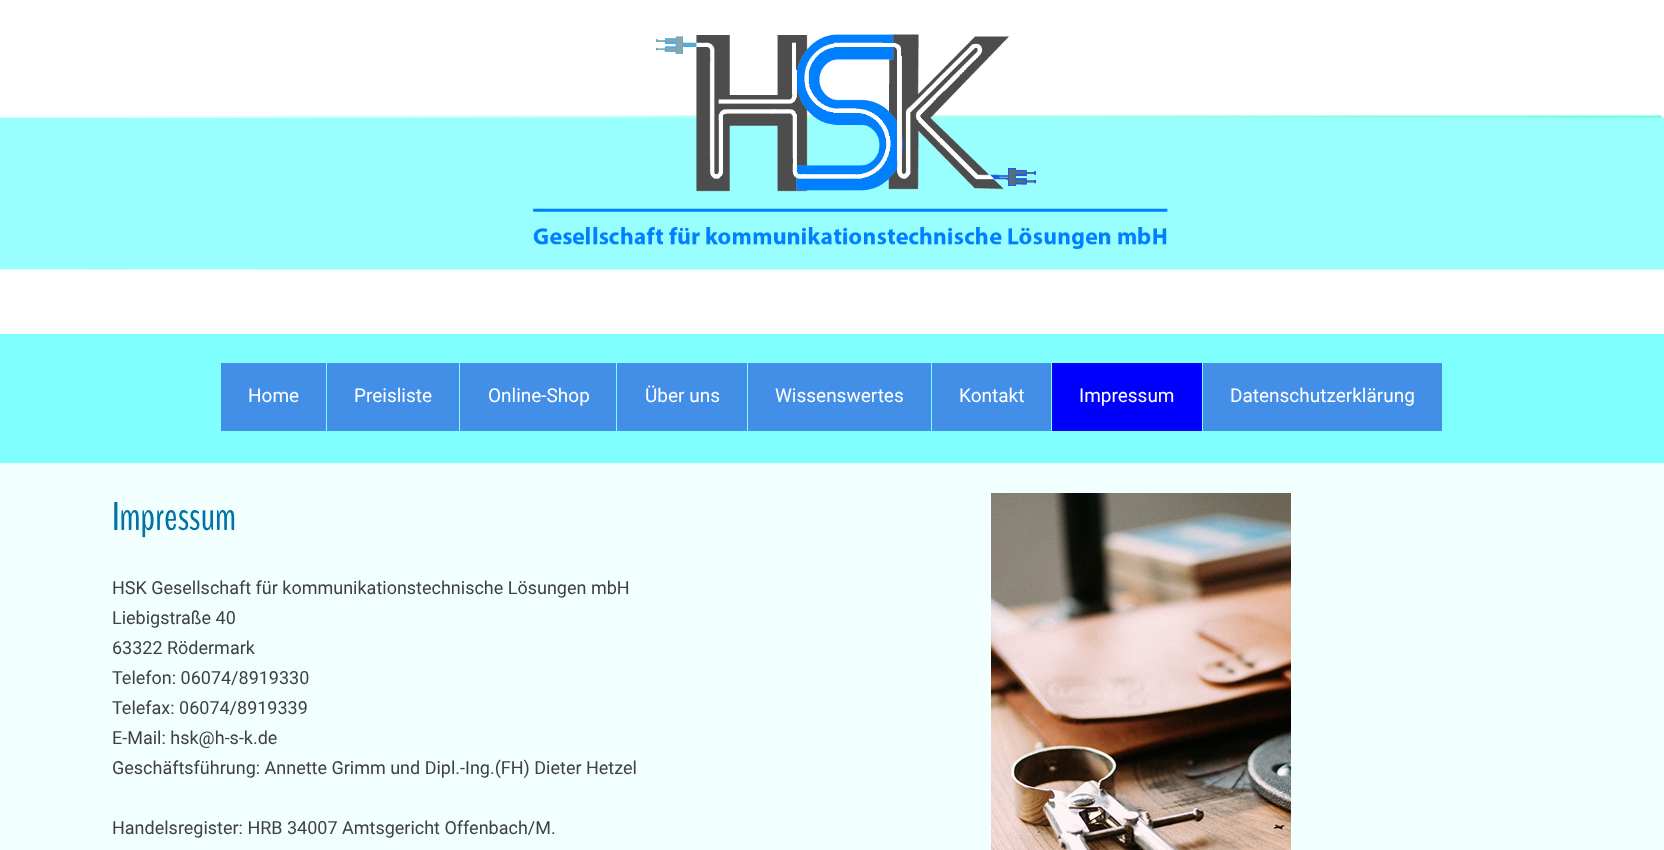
async function draw(canvas) {
  canvas.width = 1664
  canvas.height = 850
  const ctx = canvas.getContext('2d')
  ctx.miterLimit = 4
  ctx.fontKerning = 'normal'
  async function loadImage(src) {
    const img = new Image()
    img.src = src
    await img.decode()
    return img
  }

  ctx.fillStyle = '#80ffff'
  ctx.fillRect(0, 0, 1664, 850)
  ctx.drawImage(await loadImage('image0.png'), 0, 0, 1664, 334)
  ctx.fillStyle = '#438fe8'
  ctx.fillRect(221, 363, 105, 68)
  ctx.font = '19px Roboto'
  ctx.fillStyle = '#fff'
  ctx.fillText('Home', 248, 402)
  ctx.fillStyle = '#438fe8'
  ctx.fillRect(327, 363, 132, 68)
  ctx.fillStyle = '#fff'
  ctx.fillText('Preisliste', 354, 402)
  ctx.fillStyle = '#438fe8'
  ctx.fillRect(460, 363, 156, 68)
  ctx.fillStyle = '#fff'
  ctx.fillText('Online-Shop', 488, 402)
  ctx.fillStyle = '#438fe8'
  ctx.fillRect(617, 363, 130, 68)
  ctx.fillStyle = '#fff'
  ctx.fillText('Über uns', 645, 402)
  ctx.fillStyle = '#438fe8'
  ctx.fillRect(748, 363, 183, 68)
  ctx.fillStyle = '#fff'
  ctx.fillText('Wissenswertes', 775, 402)
  ctx.fillStyle = '#438fe8'
  ctx.fillRect(932, 363, 119, 68)
  ctx.fillStyle = '#fff'
  ctx.fillText('Kontakt', 959, 402)
  ctx.fillStyle = '#00f'
  ctx.fillRect(1052, 363, 150, 68)
  ctx.fillStyle = '#fff'
  ctx.fillText('Impressum', 1079, 402)
  ctx.fillStyle = '#438fe8'
  ctx.fillRect(1203, 363, 239, 68)
  ctx.fillStyle = '#fff'
  ctx.fillText('Datenschutzerklärung', 1230, 402)
  ctx.fillStyle = '#f2ffff'
  ctx.fillRect(0, 463, 1664, 387)
  ctx.font = '40px BenchNine'
  ctx.fillStyle = '#0072a5'
  ctx.fillText('Impressum', 112, 530)
  ctx.font = '18px Roboto'
  ctx.fillStyle = '#404040'
  ctx.fillText('HSK Gesellschaft für kommunikationstechnische Lösungen mbH', 112, 594)
  ctx.fillText('Liebigstraße 40', 112, 624)
  ctx.fillText('63322 Rödermark', 112, 654)
  ctx.fillText('Telefon: 06074/8919330', 112, 684)
  ctx.fillText('Telefax: 06074/8919339', 112, 714)
  ctx.fillText('E-Mail: hsk@h-s-k.de', 112, 744)
  ctx.fillText('Geschäftsführung: Annette Grimm und Dipl.-Ing.(FH) Dieter Hetzel', 112, 774)
  ctx.fillText('Handelsregister: HRB 34007 Amtsgericht Offenbach/M.', 112, 834)
  ctx.drawImage(await loadImage('image1.png'), 991, 493, 300, 357)
}

draw(document.querySelector('canvas'))
